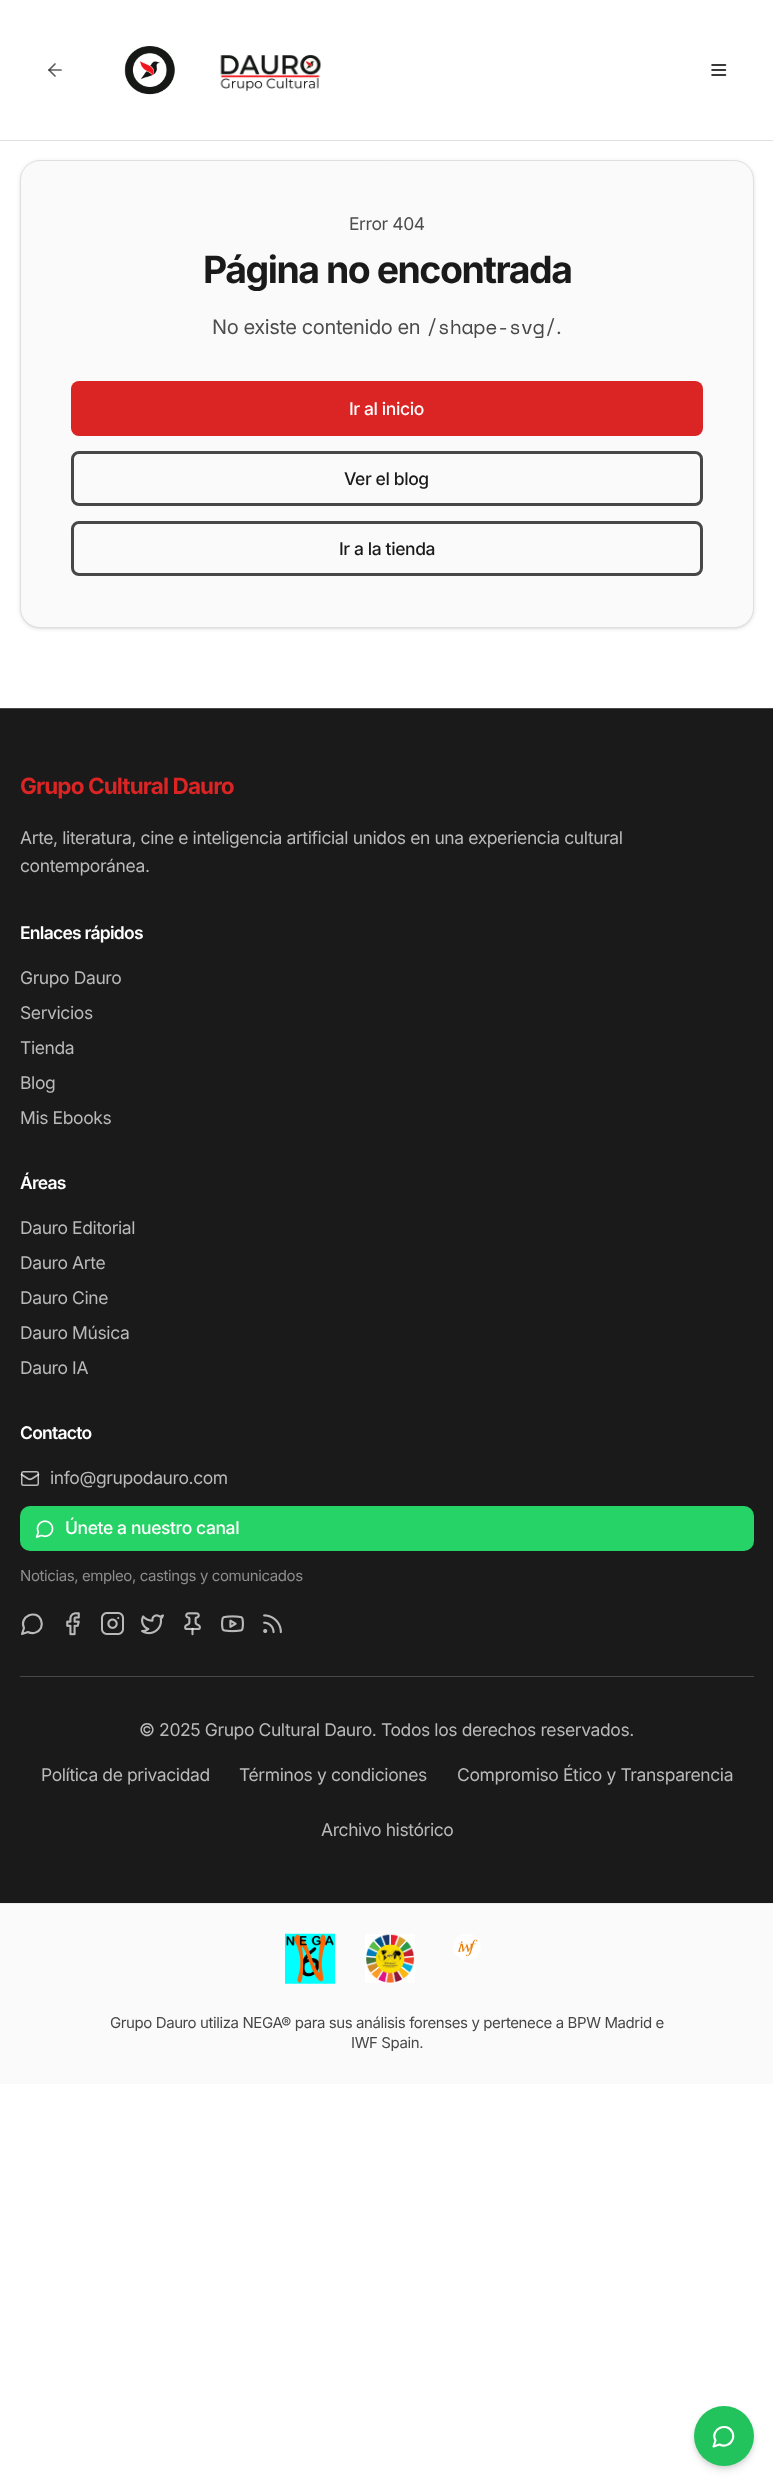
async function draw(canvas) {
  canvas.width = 773
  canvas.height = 2486
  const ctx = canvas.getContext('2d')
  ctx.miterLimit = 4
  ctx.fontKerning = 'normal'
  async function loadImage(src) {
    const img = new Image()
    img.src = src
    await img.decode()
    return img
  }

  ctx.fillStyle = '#fff'
  ctx.fillRect(0, 0, 773, 2486)
  ctx.fillStyle = '#e0e0e0'
  ctx.fillRect(0, 140, 773, 1)
  ctx.beginPath()
  ctx.moveTo(55, 76)
  ctx.lineTo(49, 70)
  ctx.lineTo(55, 64)
  ctx.strokeStyle = '#5f5f5f'
  ctx.lineWidth = 1.7
  ctx.lineCap = 'round'
  ctx.lineJoin = 'round'
  ctx.stroke()
  ctx.beginPath()
  ctx.moveTo(61, 70)
  ctx.lineTo(49, 70)
  ctx.strokeStyle = '#1a1a1ab3'
  ctx.stroke()
  ctx.drawImage(await loadImage('image0.png'), 124, 46, 51, 49)
  ctx.drawImage(await loadImage('image1.png'), 220, 54, 102, 38)
  ctx.drawImage(await loadImage('image2.png'), 711, 64, 16, 12)
  ctx.fillStyle = '#0000001a'
  ctx.filter = 'blur(1px)'
  ctx.beginPath()
  ctx.roundRect(21, 163, 732, 465, 19)
  ctx.fill()
  ctx.filter = 'none'
  ctx.filter = 'blur(2px)'
  ctx.beginPath()
  ctx.roundRect(20, 161, 734, 468, 20)
  ctx.fill()
  ctx.filter = 'none'
  ctx.fillStyle = '#fafafa'
  ctx.beginPath()
  ctx.roundRect(20.5, 160.5, 733, 467, 19.5)
  ctx.fill()
  ctx.strokeStyle = '#e0e0e0'
  ctx.lineWidth = 1
  ctx.lineJoin = 'miter'
  ctx.stroke()
  ctx.letterSpacing = '-0.4px'
  ctx.font = '17.5px Inter'
  ctx.fillStyle = '#4d4d4d'
  ctx.fillText('Error 404', 349, 230)
  ctx.letterSpacing = '-1.5px'
  ctx.font = 'bold 37.5px Inter'
  ctx.fillStyle = '#1a1a1a'
  ctx.fillText('Página no encontrada', 203, 283)
  ctx.letterSpacing = '-0.4px'
  ctx.font = '20px Inter'
  ctx.fillStyle = '#4d4d4d'
  ctx.fillText('No existe contenido en', 212, 334)
  ctx.font = '20px Space Mono'
  ctx.fillStyle = '#474747'
  ctx.fillText('/shape-svg/', 426, 334)
  ctx.font = '20px Inter'
  ctx.fillStyle = '#4d4d4d'
  ctx.fillText('.', 556, 334)
  ctx.fillStyle = '#db2424'
  ctx.beginPath()
  ctx.roundRect(71, 381, 632, 55, 8)
  ctx.fill()
  ctx.font = '500 17.5px Inter'
  ctx.fillStyle = '#fff'
  ctx.fillText('Ir al inicio', 349, 415)
  ctx.beginPath()
  ctx.roundRect(72.5, 452.5, 629, 52, 6.5)
  ctx.strokeStyle = '#474747'
  ctx.lineWidth = 3
  ctx.stroke()
  ctx.fillStyle = '#1a1a1a'
  ctx.fillText('Ver el blog', 344, 485)
  ctx.beginPath()
  ctx.roundRect(72.5, 522.5, 629, 52, 6.5)
  ctx.stroke()
  ctx.fillText('Ir a la tienda', 339, 555)
  ctx.fillRect(0, 709, 773, 1194)
  ctx.fillStyle = '#484848'
  ctx.fillRect(0, 708, 773, 1)
  ctx.letterSpacing = '-0.9px'
  ctx.font = 'bold 22.5px Inter'
  ctx.fillStyle = '#db2424'
  ctx.fillText('Grupo Cultural Dauro', 20, 794)
  ctx.letterSpacing = '-0.4px'
  ctx.font = '17.5px Inter'
  ctx.fillStyle = '#bababa'
  ctx.fillText('Arte, literatura, cine e inteligencia artificial unidos en una experiencia cultural', 20, 844)
  ctx.fillText('contemporánea.', 20, 872)
  ctx.letterSpacing = '-0.75px'
  ctx.font = '600 17.5px Inter'
  ctx.fillStyle = '#fff'
  ctx.fillText('Enlaces rápidos', 20, 939)
  ctx.letterSpacing = '-0.4px'
  ctx.font = '17.5px Inter'
  ctx.fillStyle = '#bababa'
  ctx.fillText('Grupo Dauro', 20, 984)
  ctx.fillText('Servicios', 20, 1019)
  ctx.fillText('Tienda', 20, 1054)
  ctx.fillText('Blog', 20, 1089)
  ctx.fillText('Mis Ebooks', 20, 1124)
  ctx.letterSpacing = '-0.75px'
  ctx.font = '600 17.5px Inter'
  ctx.fillStyle = '#fff'
  ctx.fillText('Áreas', 20, 1189)
  ctx.letterSpacing = '-0.4px'
  ctx.font = '17.5px Inter'
  ctx.fillStyle = '#bababa'
  ctx.fillText('Dauro Editorial', 20, 1234)
  ctx.fillText('Dauro Arte', 20, 1269)
  ctx.fillText('Dauro Cine', 20, 1304)
  ctx.fillText('Dauro Música', 20, 1339)
  ctx.fillText('Dauro IA', 20, 1374)
  ctx.letterSpacing = '-0.75px'
  ctx.font = '600 17.5px Inter'
  ctx.fillStyle = '#fff'
  ctx.fillText('Contacto', 20, 1439)
  ctx.beginPath()
  ctx.roundRect(21.75, 1471.75, 16.5, 13.5, 1.75)
  ctx.strokeStyle = '#bababa'
  ctx.lineWidth = 1.5
  ctx.stroke()
  ctx.beginPath()
  ctx.moveTo(38.5, 1474.5)
  ctx.bezierCurveTo(28, 1481, 32, 1481, 21.5, 1474.5)
  ctx.strokeStyle = '#ffffffb3'
  ctx.lineWidth = 1.7
  ctx.lineJoin = 'round'
  ctx.stroke()
  ctx.letterSpacing = '-0.4px'
  ctx.font = '17.5px Inter'
  ctx.fillStyle = '#bababa'
  ctx.fillText('info@grupodauro.com', 50, 1484)
  ctx.fillStyle = '#25d366'
  ctx.beginPath()
  ctx.roundRect(20, 1506, 734, 45, 10)
  ctx.fill()
  ctx.drawImage(await loadImage('image3.png'), 35, 1520, 19, 18)
  ctx.font = '500 17.5px Inter'
  ctx.fillStyle = '#fff'
  ctx.fillText('Únete a nuestro canal', 65, 1534)
  ctx.font = '15px Inter'
  ctx.fillStyle = '#8d8d8d'
  ctx.fillText('Noticias, empleo, castings y comunicados', 20, 1581)
  ctx.beginPath()
  ctx.moveTo(28, 1632)
  ctx.bezierCurveTo(33, 1634.5, 38.5, 1632.5, 41, 1628)
  ctx.bezierCurveTo(42, 1625.5, 42, 1622.5, 41, 1620)
  ctx.bezierCurveTo(36, 1608.5, 18.5, 1617, 24, 1628)
  ctx.lineTo(22, 1634)
  ctx.closePath()
  ctx.strokeStyle = '#bababa'
  ctx.lineWidth = 2.1
  ctx.stroke()
  ctx.drawImage(await loadImage('image4.png'), 66, 1612, 14, 24)
  ctx.drawImage(await loadImage('image5.png'), 101, 1612, 23, 23)
  ctx.drawImage(await loadImage('image6.png'), 141, 1614, 23, 21)
  ctx.drawImage(await loadImage('image7.png'), 184, 1612, 17, 24)
  ctx.drawImage(await loadImage('image8.png'), 221, 1615, 23, 18)
  ctx.drawImage(await loadImage('image9.png'), 263, 1614, 19, 20)
  ctx.fillStyle = '#484848'
  ctx.fillRect(20, 1676, 734, 1)
  ctx.font = '17.5px Inter'
  ctx.fillStyle = '#bababa'
  ctx.fillText('© 2025 Grupo Cultural Dauro. Todos los derechos reservados.', 139, 1736)
  ctx.fillText('Política de privacidad', 41, 1781)
  ctx.fillText('Términos y condiciones', 239, 1781)
  ctx.fillText('Compromiso Ético y Transparencia', 457, 1781)
  ctx.fillText('Archivo histórico', 321, 1836)
  ctx.fillStyle = '#fafafa'
  ctx.fillRect(0, 1904, 773, 180)
  ctx.fillStyle = '#ededed'
  ctx.fillRect(0, 1903, 773, 1)
  ctx.drawImage(await loadImage('image10.png'), 285, 1933, 50, 51)
  ctx.drawImage(await loadImage('image11.png'), 365, 1934, 50, 49)
  ctx.drawImage(await loadImage('image12.png'), 453, 1934, 28, 26)
  ctx.font = '15px Inter'
  ctx.fillStyle = '#474747'
  ctx.fillText('Grupo Dauro utiliza NEGA® para sus análisis forenses y pertenece a BPW Madrid e', 110, 2028)
  ctx.fillText('IWF Spain.', 351, 2048)
  ctx.fillStyle = '#0000001a'
  ctx.filter = 'blur(4px)'
  ctx.beginPath()
  ctx.roundRect(695, 2413, 58, 57, 28.5)
  ctx.fill()
  ctx.filter = 'none'
  ctx.filter = 'blur(2px)'
  ctx.beginPath()
  ctx.roundRect(694, 2408, 60, 60, 30)
  ctx.fill()
  ctx.filter = 'none'
  ctx.fillStyle = '#22c35d'
  ctx.beginPath()
  ctx.arc(724, 2436, 30, 0, 2 * Math.PI)
  ctx.fill()
  ctx.beginPath()
  ctx.moveTo(719.5, 2444.5)
  ctx.bezierCurveTo(724, 2447, 730, 2445, 732, 2440.5)
  ctx.bezierCurveTo(733.5, 2438, 733.5, 2435, 732.5, 2432.5)
  ctx.bezierCurveTo(727, 2421, 709.5, 2429.5, 715.5, 2440.5)
  ctx.lineTo(713.5, 2446.5)
  ctx.closePath()
  ctx.strokeStyle = '#fff'
  ctx.stroke()
}

draw(document.querySelector('canvas'))
